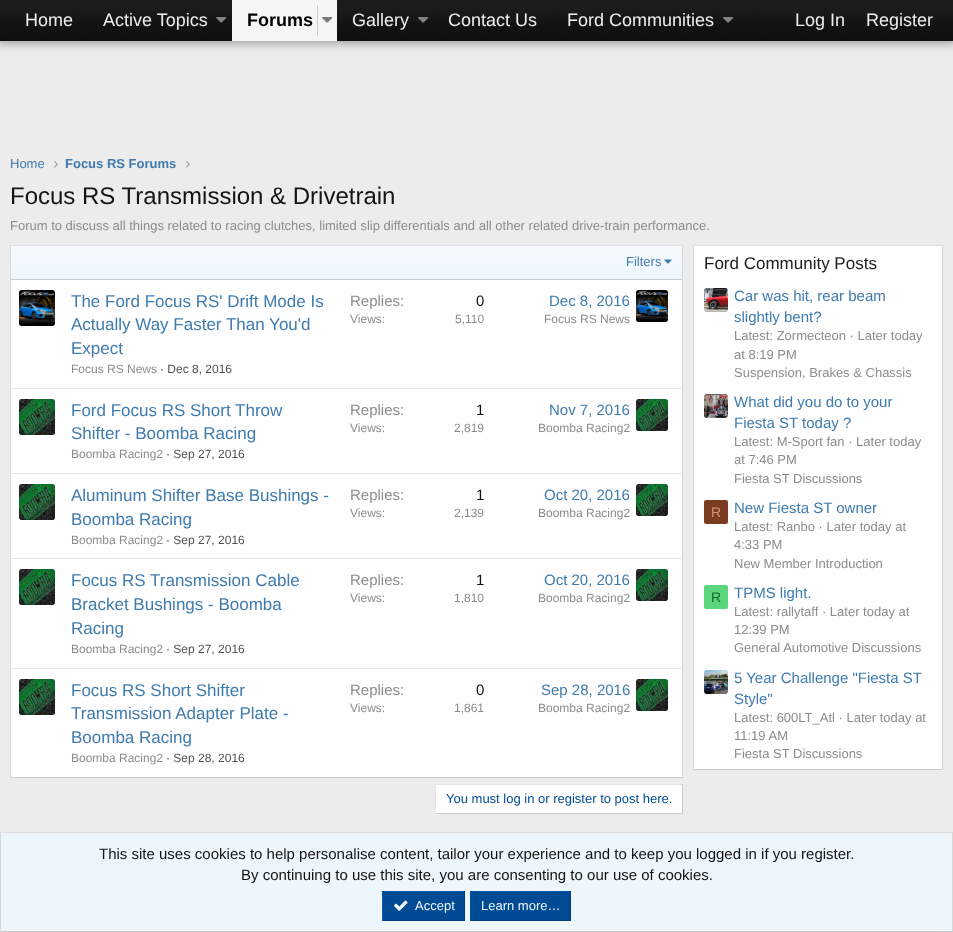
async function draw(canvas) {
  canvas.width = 953
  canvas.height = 932
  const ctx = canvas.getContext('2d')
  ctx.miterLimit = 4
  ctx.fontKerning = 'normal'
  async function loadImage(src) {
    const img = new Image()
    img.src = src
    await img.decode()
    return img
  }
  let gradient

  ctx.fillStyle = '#ececec'
  ctx.fillRect(0, 0, 953, 932)
  ctx.fillStyle = '#0000004d'
  ctx.filter = 'blur(4px)'
  ctx.beginPath()
  ctx.rect(-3, -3, 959, 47)
  ctx.fill()
  ctx.filter = 'none'
  ctx.drawImage(await loadImage('image0.png'), 0, 0, 953, 41)
  ctx.font = '18px Liberation Sans'
  ctx.fillStyle = '#eee'
  ctx.fillText('Home', 25, 26)
  ctx.fillText('Active Topics', 103, 26)
  ctx.drawImage(await loadImage('image1.png'), 216, 17, 11, 6)
  ctx.fillStyle = '#f5f5f5'
  ctx.fillRect(232, 0, 105, 41)
  ctx.font = 'bold 18px Liberation Sans'
  ctx.fillStyle = '#000'
  ctx.fillText('Forums', 247, 26)
  ctx.fillStyle = '#cacaca'
  ctx.fillRect(317, 5, 1, 31)
  ctx.drawImage(await loadImage('image2.png'), 322, 17, 11, 6)
  ctx.font = '18px Liberation Sans'
  ctx.fillStyle = '#eee'
  ctx.fillText('Gallery', 352, 26)
  ctx.drawImage(await loadImage('image3.png'), 418, 17, 11, 6)
  ctx.fillText('Contact Us', 448, 26)
  ctx.fillText('Ford Communities', 567, 26)
  ctx.drawImage(await loadImage('image4.png'), 723, 17, 11, 6)
  ctx.fillText('Log In', 795, 26)
  ctx.fillText('Register', 866, 26)
  ctx.font = '13px Liberation Sans'
  ctx.fillStyle = '#3f7bae'
  ctx.fillText('Home', 10, 168)
  ctx.drawImage(await loadImage('image5.png'), 54, 161, 4, 7)
  ctx.font = 'bold 13px Liberation Sans'
  ctx.fillText('Focus RS Forums', 65, 168)
  ctx.drawImage(await loadImage('image5.png'), 186, 161, 4, 7)
  ctx.font = '24px Liberation Sans'
  ctx.fillStyle = '#141414'
  ctx.fillText('Focus RS Transmission & Drivetrain', 10, 204)
  ctx.font = '13px Liberation Sans'
  ctx.fillStyle = '#8c8c8c'
  ctx.fillText('Forum to discuss all things related to racing clutches, limited slip differentials and all other related drive-train performance.', 10, 230)
  ctx.fillStyle = '#fefefe'
  ctx.fillRect(11, 280, 671, 497)
  ctx.fillStyle = '#dfdfdf'
  ctx.fillRect(10, 245, 673, 1)
  ctx.fillStyle = '#d8d8d8'
  ctx.fillRect(682, 245, 1, 533)
  ctx.fillStyle = '#cbcbcb'
  ctx.fillRect(10, 777, 673, 1)
  ctx.fillStyle = '#d8d8d8'
  ctx.fillRect(10, 245, 1, 533)
  gradient = ctx.createLinearGradient(347, 279, 347, 246)
  gradient.addColorStop(0, '#edf6fd')
  gradient.addColorStop(1, '#f6fafe')
  ctx.fillStyle = gradient
  ctx.fillRect(11, 246, 671, 33)
  ctx.fillStyle = '#cbcbcb'
  ctx.fillRect(11, 279, 671, 1)
  ctx.fillStyle = '#3f7bae'
  ctx.fillText('Filters', 626, 266)
  ctx.drawImage(await loadImage('image6.png'), 664, 259, 8, 5)
  ctx.drawImage(await loadImage('image7.png'), 19, 290, 36, 36)
  ctx.font = '17px Liberation Sans'
  ctx.fillText('The Ford Focus RS\' Drift Mode Is', 71, 307)
  ctx.fillText('Actually Way Faster Than You\'d', 71, 330)
  ctx.fillText('Expect', 71, 354)
  ctx.font = '12px Liberation Sans'
  ctx.fillStyle = '#8c8c8c'
  ctx.fillText('Focus RS News', 71, 373)
  ctx.fillStyle = '#505050'
  ctx.fillText('· Dec 8, 2016', 160, 373)
  ctx.font = '15px Liberation Sans'
  ctx.fillStyle = '#8c8c8c'
  ctx.fillText('Replies:', 350, 306)
  ctx.fillStyle = '#141414'
  ctx.fillText('0', 476, 306)
  ctx.font = '12px Liberation Sans'
  ctx.fillStyle = '#8c8c8c'
  ctx.fillText('Views:', 350, 323)
  ctx.fillText('5,110', 455, 323)
  ctx.font = '15px Liberation Sans'
  ctx.fillStyle = '#3f7bae'
  ctx.fillText('Dec 8, 2016', 549, 306)
  ctx.drawImage(await loadImage('image8.png'), 636, 290, 32, 32)
  ctx.font = '12px Liberation Sans'
  ctx.fillStyle = '#8c8c8c'
  ctx.fillText('Focus RS News', 544, 323)
  ctx.fillStyle = '#e7e7e7'
  ctx.fillRect(11, 388, 671, 1)
  ctx.drawImage(await loadImage('image9.png'), 19, 399, 36, 36)
  ctx.font = '17px Liberation Sans'
  ctx.fillStyle = '#3f7bae'
  ctx.fillText('Ford Focus RS Short Throw', 71, 416)
  ctx.fillText('Shifter - Boomba Racing', 71, 439)
  ctx.font = '12px Liberation Sans'
  ctx.fillStyle = '#8c8c8c'
  ctx.fillText('Boomba Racing2', 71, 458)
  ctx.fillStyle = '#505050'
  ctx.fillText('· Sep 27, 2016', 166, 458)
  ctx.font = '15px Liberation Sans'
  ctx.fillStyle = '#8c8c8c'
  ctx.fillText('Replies:', 350, 415)
  ctx.fillStyle = '#141414'
  ctx.fillText('1', 476, 415)
  ctx.font = '12px Liberation Sans'
  ctx.fillStyle = '#8c8c8c'
  ctx.fillText('Views:', 350, 432)
  ctx.fillText('2,819', 454, 432)
  ctx.font = '15px Liberation Sans'
  ctx.fillStyle = '#3f7bae'
  ctx.fillText('Nov 7, 2016', 549, 415)
  ctx.drawImage(await loadImage('image10.png'), 636, 399, 32, 32)
  ctx.font = '12px Liberation Sans'
  ctx.fillStyle = '#8c8c8c'
  ctx.fillText('Boomba Racing2', 538, 432)
  ctx.fillStyle = '#e7e7e7'
  ctx.fillRect(11, 473, 671, 1)
  ctx.drawImage(await loadImage('image9.png'), 19, 484, 36, 36)
  ctx.font = '17px Liberation Sans'
  ctx.fillStyle = '#3f7bae'
  ctx.fillText('Aluminum Shifter Base Bushings -', 71, 501)
  ctx.fillText('Boomba Racing', 71, 525)
  ctx.font = '12px Liberation Sans'
  ctx.fillStyle = '#8c8c8c'
  ctx.fillText('Boomba Racing2', 71, 544)
  ctx.fillStyle = '#505050'
  ctx.fillText('· Sep 27, 2016', 166, 544)
  ctx.font = '15px Liberation Sans'
  ctx.fillStyle = '#8c8c8c'
  ctx.fillText('Replies:', 350, 500)
  ctx.fillStyle = '#141414'
  ctx.fillText('1', 476, 500)
  ctx.font = '12px Liberation Sans'
  ctx.fillStyle = '#8c8c8c'
  ctx.fillText('Views:', 350, 517)
  ctx.fillText('2,139', 454, 517)
  ctx.font = '15px Liberation Sans'
  ctx.fillStyle = '#3f7bae'
  ctx.fillText('Oct 20, 2016', 544, 500)
  ctx.drawImage(await loadImage('image10.png'), 636, 484, 32, 32)
  ctx.font = '12px Liberation Sans'
  ctx.fillStyle = '#8c8c8c'
  ctx.fillText('Boomba Racing2', 538, 517)
  ctx.fillStyle = '#e7e7e7'
  ctx.fillRect(11, 558, 671, 1)
  ctx.drawImage(await loadImage('image9.png'), 19, 569, 36, 36)
  ctx.font = '17px Liberation Sans'
  ctx.fillStyle = '#3f7bae'
  ctx.fillText('Focus RS Transmission Cable', 71, 586)
  ctx.fillText('Bracket Bushings - Boomba', 71, 610)
  ctx.fillText('Racing', 71, 634)
  ctx.font = '12px Liberation Sans'
  ctx.fillStyle = '#8c8c8c'
  ctx.fillText('Boomba Racing2', 71, 653)
  ctx.fillStyle = '#505050'
  ctx.fillText('· Sep 27, 2016', 166, 653)
  ctx.font = '15px Liberation Sans'
  ctx.fillStyle = '#8c8c8c'
  ctx.fillText('Replies:', 350, 585)
  ctx.fillStyle = '#141414'
  ctx.fillText('1', 476, 585)
  ctx.font = '12px Liberation Sans'
  ctx.fillStyle = '#8c8c8c'
  ctx.fillText('Views:', 350, 602)
  ctx.fillText('1,810', 454, 602)
  ctx.font = '15px Liberation Sans'
  ctx.fillStyle = '#3f7bae'
  ctx.fillText('Oct 20, 2016', 544, 585)
  ctx.drawImage(await loadImage('image10.png'), 636, 569, 32, 32)
  ctx.font = '12px Liberation Sans'
  ctx.fillStyle = '#8c8c8c'
  ctx.fillText('Boomba Racing2', 538, 602)
  ctx.fillStyle = '#e7e7e7'
  ctx.fillRect(11, 668, 671, 1)
  ctx.drawImage(await loadImage('image9.png'), 19, 679, 36, 36)
  ctx.font = '17px Liberation Sans'
  ctx.fillStyle = '#3f7bae'
  ctx.fillText('Focus RS Short Shifter', 71, 696)
  ctx.fillText('Transmission Adapter Plate -', 71, 719)
  ctx.fillText('Boomba Racing', 71, 743)
  ctx.font = '12px Liberation Sans'
  ctx.fillStyle = '#8c8c8c'
  ctx.fillText('Boomba Racing2', 71, 762)
  ctx.fillStyle = '#505050'
  ctx.fillText('· Sep 28, 2016', 166, 762)
  ctx.font = '15px Liberation Sans'
  ctx.fillStyle = '#8c8c8c'
  ctx.fillText('Replies:', 350, 695)
  ctx.fillStyle = '#141414'
  ctx.fillText('0', 476, 695)
  ctx.font = '12px Liberation Sans'
  ctx.fillStyle = '#8c8c8c'
  ctx.fillText('Views:', 350, 712)
  ctx.fillText('1,861', 454, 712)
  ctx.font = '15px Liberation Sans'
  ctx.fillStyle = '#3f7bae'
  ctx.fillText('Sep 28, 2016', 541, 695)
  ctx.drawImage(await loadImage('image10.png'), 636, 679, 32, 32)
  ctx.font = '12px Liberation Sans'
  ctx.fillStyle = '#8c8c8c'
  ctx.fillText('Boomba Racing2', 538, 712)
  ctx.fillStyle = '#fefefe'
  ctx.fillRect(436, 785, 246, 28)
  ctx.fillStyle = '#e5e5e5'
  ctx.fillRect(435, 784, 248, 1)
  ctx.fillStyle = '#cbcbcb'
  ctx.fillRect(682, 784, 1, 30)
  ctx.fillRect(435, 813, 248, 1)
  ctx.fillStyle = '#e5e5e5'
  ctx.fillRect(435, 784, 1, 30)
  ctx.font = '13px Liberation Sans'
  ctx.fillStyle = '#004b94'
  ctx.fillText('You must log in or register to post here.', 446, 803)
  ctx.fillStyle = '#fefefe'
  ctx.fillRect(694, 246, 248, 523)
  ctx.fillStyle = '#dfdfdf'
  ctx.fillRect(693, 245, 250, 1)
  ctx.fillStyle = '#d8d8d8'
  ctx.fillRect(942, 245, 1, 525)
  ctx.fillStyle = '#cbcbcb'
  ctx.fillRect(693, 769, 250, 1)
  ctx.fillStyle = '#d8d8d8'
  ctx.fillRect(693, 245, 1, 525)
  ctx.font = '17px Liberation Sans'
  ctx.fillStyle = '#1d1d1d'
  ctx.fillText('Ford Community Posts', 704, 269)
  ctx.drawImage(await loadImage('image11.png'), 704, 288, 24, 24)
  ctx.font = '15px Liberation Sans'
  ctx.fillStyle = '#3f7bae'
  ctx.fillText('Car was hit, rear beam', 734, 301)
  ctx.fillText('slightly bent?', 734, 322)
  ctx.font = '13px Liberation Sans'
  ctx.fillStyle = '#8c8c8c'
  ctx.fillText('Latest: Zormecteon · Later today', 734, 340)
  ctx.fillText('at 8:19 PM', 734, 359)
  ctx.fillText('Suspension, Brakes & Chassis', 734, 377)
  ctx.drawImage(await loadImage('image12.png'), 704, 394, 24, 24)
  ctx.font = '15px Liberation Sans'
  ctx.fillStyle = '#3f7bae'
  ctx.fillText('What did you do to your', 734, 407)
  ctx.fillText('Fiesta ST today ?', 734, 428)
  ctx.font = '13px Liberation Sans'
  ctx.fillStyle = '#8c8c8c'
  ctx.fillText('Latest: M-Sport fan · Later today', 734, 446)
  ctx.fillText('at 7:46 PM', 734, 464)
  ctx.fillText('Fiesta ST Discussions', 734, 483)
  ctx.fillStyle = '#7a3d1f'
  ctx.beginPath()
  ctx.roundRect(704, 500, 24, 24, 2)
  ctx.fill()
  ctx.font = '14px Liberation Sans'
  ctx.fillStyle = '#db9470'
  ctx.fillText('R', 711, 517)
  ctx.font = '15px Liberation Sans'
  ctx.fillStyle = '#3f7bae'
  ctx.fillText('New Fiesta ST owner', 734, 513)
  ctx.font = '13px Liberation Sans'
  ctx.fillStyle = '#8c8c8c'
  ctx.fillText('Latest: Ranbo · Later today at', 734, 531)
  ctx.fillText('4:33 PM', 734, 549)
  ctx.fillText('New Member Introduction', 734, 568)
  ctx.fillStyle = '#5cd67a'
  ctx.beginPath()
  ctx.roundRect(704, 585, 24, 24, 2)
  ctx.fill()
  ctx.font = '14px Liberation Sans'
  ctx.fillStyle = '#1a662d'
  ctx.fillText('R', 711, 602)
  ctx.font = '15px Liberation Sans'
  ctx.fillStyle = '#3f7bae'
  ctx.fillText('TPMS light.', 734, 598)
  ctx.font = '13px Liberation Sans'
  ctx.fillStyle = '#8c8c8c'
  ctx.fillText('Latest: rallytaff · Later today at', 734, 616)
  ctx.fillText('12:39 PM', 734, 634)
  ctx.fillText('General Automotive Discussions', 734, 652)
  ctx.drawImage(await loadImage('image13.png'), 704, 670, 24, 24)
  ctx.font = '15px Liberation Sans'
  ctx.fillStyle = '#3f7bae'
  ctx.fillText('5 Year Challenge "Fiesta ST', 734, 683)
  ctx.fillText('Style"', 734, 704)
  ctx.font = '13px Liberation Sans'
  ctx.fillStyle = '#8c8c8c'
  ctx.fillText('Latest: 600LT_Atl · Later today at', 734, 722)
  ctx.fillText('11:19 AM', 734, 740)
  ctx.fillText('Fiesta ST Discussions', 734, 758)
  ctx.fillStyle = '#edf6fd'
  ctx.fillRect(1, 833, 951, 98)
  ctx.fillStyle = '#dfdfdf'
  ctx.fillRect(0, 832, 953, 1)
  ctx.fillStyle = '#d8d8d8'
  ctx.fillRect(952, 832, 1, 100)
  ctx.fillStyle = '#cbcbcb'
  ctx.fillRect(0, 931, 953, 1)
  ctx.fillStyle = '#d8d8d8'
  ctx.fillRect(0, 832, 1, 100)
  ctx.font = '15px Liberation Sans'
  ctx.fillStyle = '#141414'
  ctx.fillText('This site uses cookies to help personalise content, tailor your experience and to keep you logged in if you register.', 99, 859)
  ctx.fillText('By continuing to use this site, you are consenting to our use of cookies.', 241, 880)
  ctx.fillStyle = '#004b94'
  ctx.fillRect(383, 892, 81, 28)
  ctx.fillStyle = '#0058ae'
  ctx.fillRect(382, 891, 83, 1)
  ctx.fillStyle = '#003e7b'
  ctx.fillRect(464, 891, 1, 30)
  ctx.fillRect(382, 920, 83, 1)
  ctx.fillStyle = '#0058ae'
  ctx.fillRect(382, 891, 1, 30)
  ctx.drawImage(await loadImage('image14.png'), 394, 900, 14, 11)
  ctx.font = '13px Liberation Sans'
  ctx.fillStyle = '#edf6fd'
  ctx.fillText('Accept', 415, 910)
  ctx.fillStyle = '#004b94'
  ctx.fillRect(471, 892, 99, 28)
  ctx.fillStyle = '#0058ae'
  ctx.fillRect(470, 891, 101, 1)
  ctx.fillStyle = '#003e7b'
  ctx.fillRect(570, 891, 1, 30)
  ctx.fillRect(470, 920, 101, 1)
  ctx.fillStyle = '#0058ae'
  ctx.fillRect(470, 891, 1, 30)
  ctx.fillStyle = '#edf6fd'
  ctx.fillText('Learn more…', 481, 910)
}

draw(document.querySelector('canvas'))
